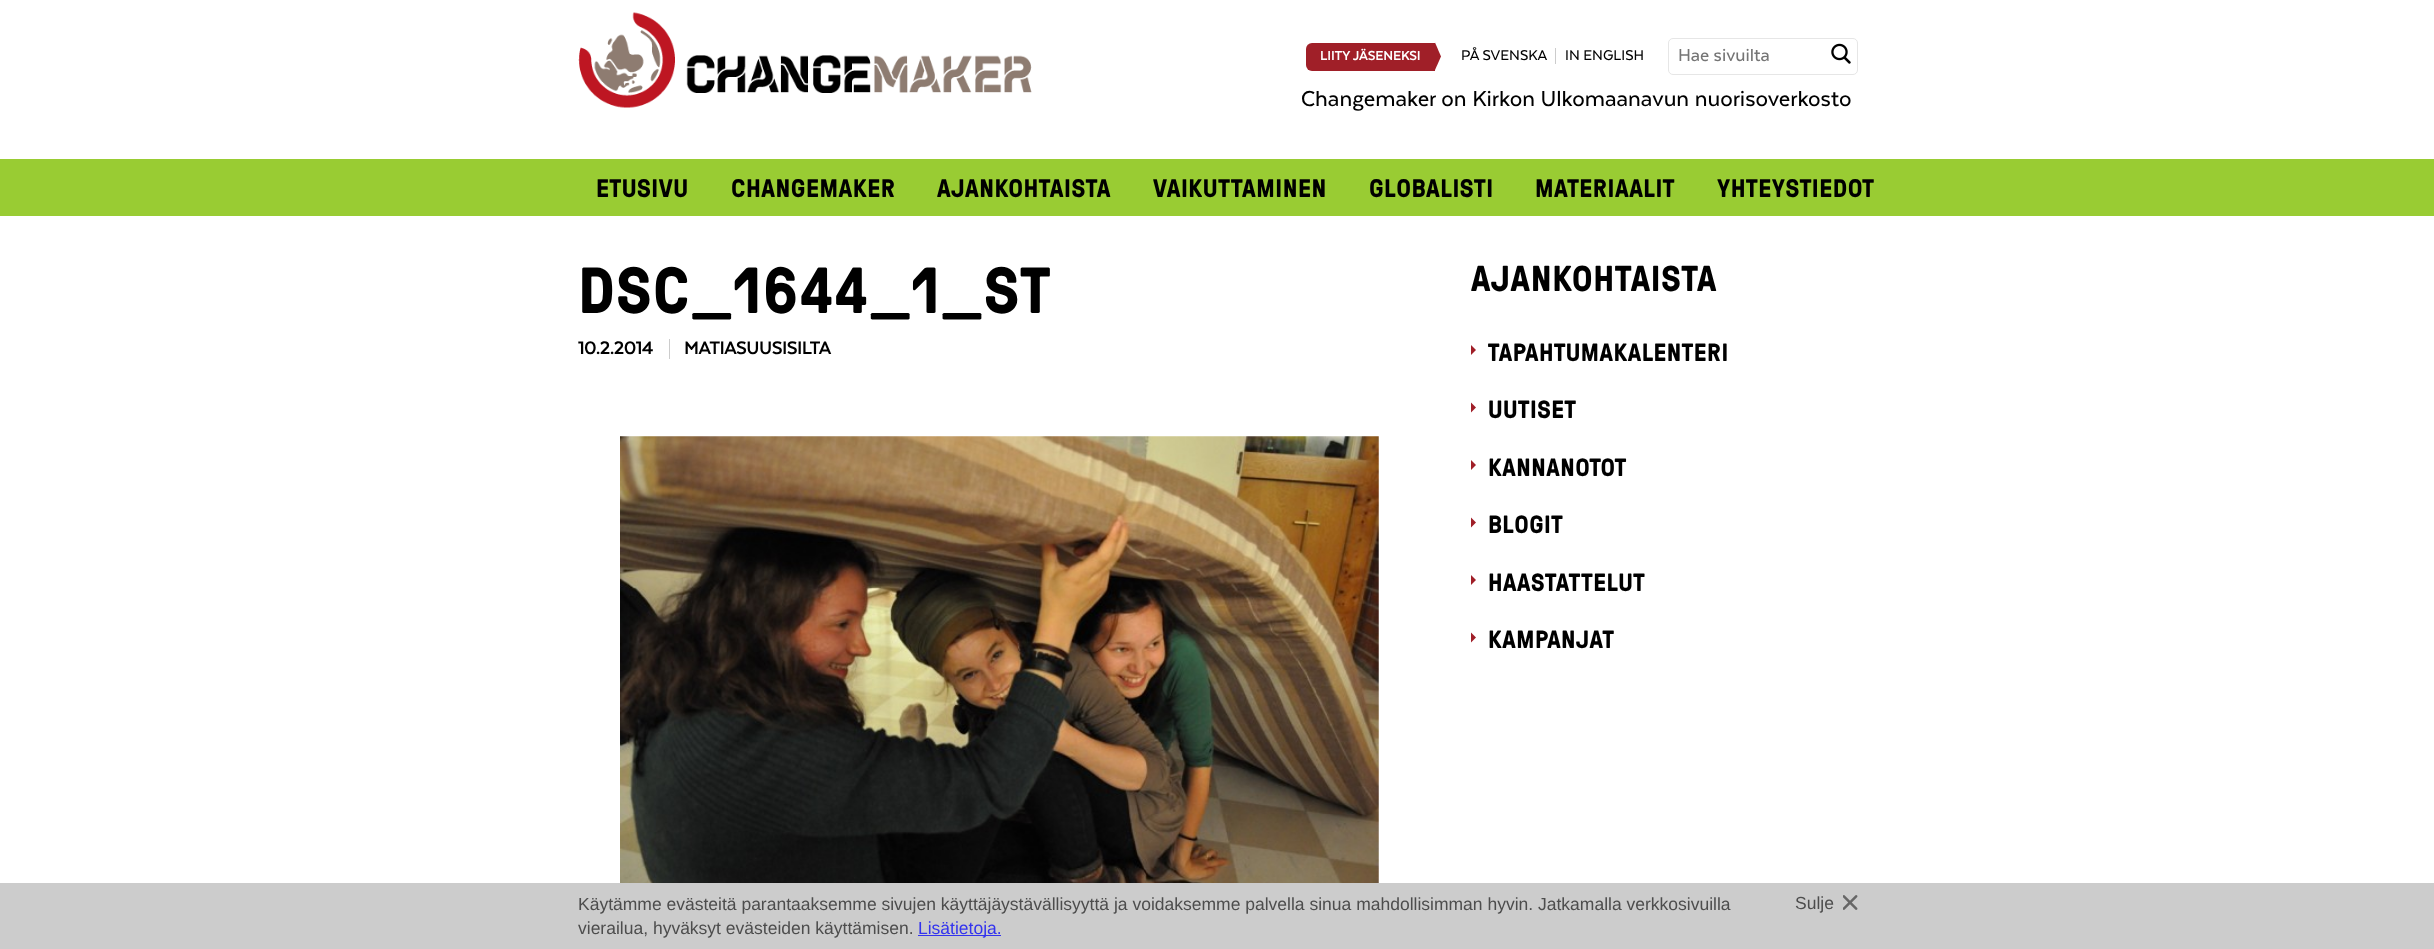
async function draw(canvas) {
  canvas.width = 2434
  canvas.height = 949
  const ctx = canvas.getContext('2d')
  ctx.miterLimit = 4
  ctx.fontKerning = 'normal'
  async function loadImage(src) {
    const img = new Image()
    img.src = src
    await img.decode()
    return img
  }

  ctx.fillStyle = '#fff'
  ctx.fillRect(0, 0, 2434, 949)
  ctx.drawImage(await loadImage('image0.png'), 578, 12, 454, 96)
  ctx.fillStyle = '#a01f28'
  ctx.beginPath()
  ctx.roundRect(1306, 43, 129, 28, [6, 0, 0, 6])
  ctx.fill()
  ctx.letterSpacing = '0.25px'
  ctx.font = 'bold 14.25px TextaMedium'
  ctx.fillStyle = '#fff'
  ctx.fillText('LIITY JÄSENEKSI', 1320, 60)
  ctx.fillStyle = '#a01f28'
  ctx.beginPath()
  ctx.moveTo(1435, 70)
  ctx.lineTo(1435, 42.5)
  ctx.lineTo(1441, 56.5)
  ctx.closePath()
  ctx.fill()
  ctx.letterSpacing = '0px'
  ctx.font = '500 16.25px TextaMedium'
  ctx.fillStyle = '#000'
  ctx.fillText('PÅ SVENSKA', 1461, 60)
  ctx.fillText('IN ENGLISH', 1565, 60)
  ctx.fillStyle = '#ccc'
  ctx.fillRect(1555, 48, 1, 16)
  ctx.beginPath()
  ctx.roundRect(1668.5, 38.5, 189, 36, 4.5)
  ctx.strokeStyle = '#e6e6e6'
  ctx.stroke()
  ctx.font = '500 20px TextaMedium'
  ctx.fillStyle = '#757575'
  ctx.fillText('Hae sivuilta', 1678, 61)
  ctx.drawImage(await loadImage('image1.png'), 1831, 43, 20, 21)
  ctx.font = '500 25px TextaMedium'
  ctx.fillStyle = '#000'
  ctx.fillText('Changemaker on Kirkon Ulkomaanavun nuorisoverkosto', 1301, 106)
  ctx.fillStyle = '#9c3'
  ctx.fillRect(0, 159, 2434, 57)
  ctx.letterSpacing = '0.5px'
  ctx.font = 'bold 25.5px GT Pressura'
  ctx.fillStyle = '#000'
  ctx.fillText('ETUSIVU', 596, 197)
  ctx.fillText('CHANGEMAKER', 731, 197)
  ctx.fillText('AJANKOHTAISTA', 937, 197)
  ctx.fillText('VAIKUTTAMINEN', 1153, 197)
  ctx.fillText('GLOBALISTI', 1369, 197)
  ctx.fillText('MATERIAALIT', 1535, 197)
  ctx.fillText('YHTEYSTIEDOT', 1717, 197)
  ctx.letterSpacing = '1.25px'
  ctx.font = 'bold 65px GT Pressura'
  ctx.fillText('DSC_1644_1_ST', 578, 313)
  ctx.letterSpacing = '0px'
  ctx.font = 'bold 20px TextaMedium'
  ctx.fillText('10.2.2014', 578, 354)
  ctx.fillStyle = '#ccc'
  ctx.fillRect(669, 339, 1, 20)
  ctx.fillStyle = '#000'
  ctx.fillText('MATIASUUSISILTA', 684, 354)
  ctx.drawImage(await loadImage('image2.png'), 620, 436, 759, 447)
  ctx.letterSpacing = '0.75px'
  ctx.font = 'bold 36px GT Pressura'
  ctx.fillText('AJANKOHTAISTA', 1471, 291)
  ctx.fillStyle = '#a01f28'
  ctx.beginPath()
  ctx.moveTo(1471, 355)
  ctx.lineTo(1471, 345)
  ctx.lineTo(1476, 350)
  ctx.closePath()
  ctx.fill()
  ctx.letterSpacing = '0.5px'
  ctx.font = 'bold 25px GT Pressura'
  ctx.fillStyle = '#000'
  ctx.fillText('TAPAHTUMAKALENTERI', 1488, 361)
  ctx.fillStyle = '#a01f28'
  ctx.beginPath()
  ctx.moveTo(1471, 412.5)
  ctx.lineTo(1471, 402.5)
  ctx.lineTo(1476, 407.5)
  ctx.closePath()
  ctx.fill()
  ctx.fillStyle = '#000'
  ctx.fillText('UUTISET', 1488, 418)
  ctx.fillStyle = '#a01f28'
  ctx.beginPath()
  ctx.moveTo(1471, 470)
  ctx.lineTo(1471, 460)
  ctx.lineTo(1476, 465)
  ctx.closePath()
  ctx.fill()
  ctx.fillStyle = '#000'
  ctx.fillText('KANNANOTOT', 1488, 476)
  ctx.fillStyle = '#a01f28'
  ctx.beginPath()
  ctx.moveTo(1471, 527.5)
  ctx.lineTo(1471, 517.5)
  ctx.lineTo(1476, 522.5)
  ctx.closePath()
  ctx.fill()
  ctx.fillStyle = '#000'
  ctx.fillText('BLOGIT', 1488, 533)
  ctx.fillStyle = '#a01f28'
  ctx.beginPath()
  ctx.moveTo(1471, 585)
  ctx.lineTo(1471, 575)
  ctx.lineTo(1476, 580)
  ctx.closePath()
  ctx.fill()
  ctx.fillStyle = '#000'
  ctx.fillText('HAASTATTELUT', 1488, 591)
  ctx.fillStyle = '#a01f28'
  ctx.beginPath()
  ctx.moveTo(1471, 642.5)
  ctx.lineTo(1471, 632.5)
  ctx.lineTo(1476, 637.5)
  ctx.closePath()
  ctx.fill()
  ctx.fillStyle = '#000'
  ctx.fillText('KAMPANJAT', 1488, 648)
  ctx.fillStyle = '#ccc'
  ctx.fillRect(0, 883, 2434, 66)
  ctx.letterSpacing = '0px'
  ctx.font = '17.5px Liberation Sans'
  ctx.fillStyle = '#4d4d4d'
  ctx.fillText('Käytämme evästeitä parantaaksemme sivujen käyttäjäystävällisyyttä ja voidaksemme palvella sinua mahdollisimman hyvin. Jatkamalla verkkosivuilla', 578, 910)
  ctx.fillText('Sulje', 1795, 909)
  ctx.drawImage(await loadImage('image3.png'), 1843, 895, 15, 15)
  ctx.fillText('vierailua, hyväksyt evästeiden käyttämisen.', 578, 934)
  ctx.fillStyle = '#33e'
  ctx.fillRect(918, 935, 83, 1)
  ctx.fillText('Lisätietoja.', 918, 934)
}

draw(document.querySelector('canvas'))
